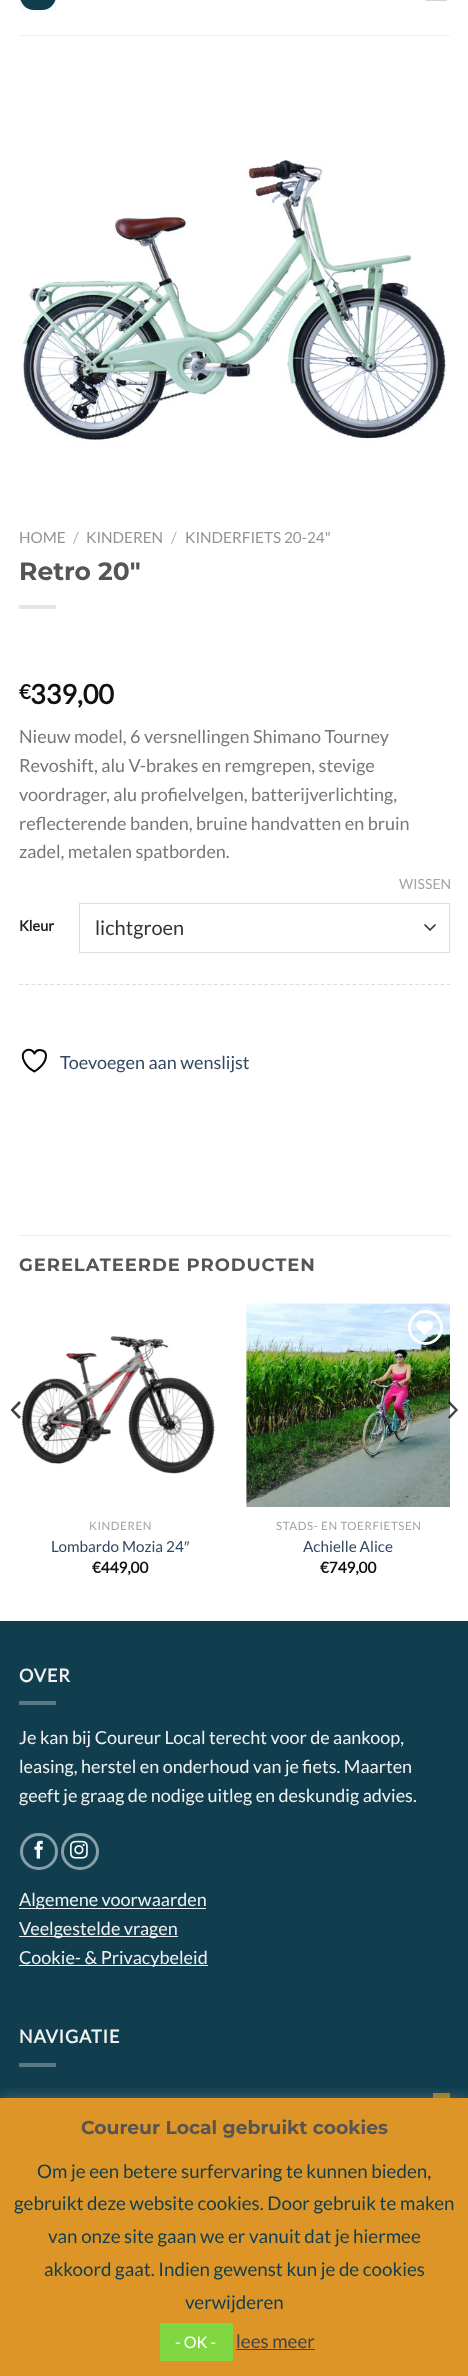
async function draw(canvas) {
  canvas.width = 468
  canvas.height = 2376
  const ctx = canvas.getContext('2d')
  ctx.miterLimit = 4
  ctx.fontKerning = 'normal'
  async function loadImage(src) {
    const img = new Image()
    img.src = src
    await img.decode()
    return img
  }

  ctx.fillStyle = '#fff'
  ctx.fillRect(0, 0, 468, 2376)
  ctx.fillStyle = '#103e4f'
  ctx.beginPath()
  ctx.roundRect(20, -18, 36, 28, 18)
  ctx.fill()
  ctx.strokeStyle = '#0000000d'
  ctx.strokeRect(20.5, -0.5, 35, 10)
  ctx.drawImage(await loadImage('image0.png'), 425, 0, 22, 1)
  ctx.fillStyle = '#f1f1f1'
  ctx.fillRect(19, 35, 431, 1)
  ctx.drawImage(await loadImage('image1.png'), 22, 160, 425, 282)
  ctx.font = '15.25px Lato'
  ctx.fillStyle = '#949494'
  ctx.fillText('HOME', 19, 543)
  ctx.fillStyle = '#b2b2b2'
  ctx.fillText('/', 73, 543)
  ctx.fillStyle = '#949494'
  ctx.fillText('KINDEREN', 86, 543)
  ctx.fillStyle = '#b2b2b2'
  ctx.fillText('/', 171, 543)
  ctx.fillStyle = '#949494'
  ctx.fillText('KINDERFIETS 20-24"', 185, 543)
  ctx.font = '100 25px Montserrat'
  ctx.fillStyle = '#555'
  ctx.fillText('Retro 20″', 19, 580)
  ctx.fillStyle = '#e6e6e6'
  ctx.fillRect(19, 605, 37, 4)
  ctx.font = 'bold 20px Lato'
  ctx.fillStyle = '#111'
  ctx.fillText('€', 19, 699)
  ctx.font = 'bold 27px Lato'
  ctx.fillText('339,00', 30, 704)
  ctx.font = '18px Lato'
  ctx.fillStyle = '#777'
  ctx.fillText('Nieuw model, 6 versnellingen Shimano Tourney', 19, 743)
  ctx.fillText('Revoshift, alu V-brakes en remgrepen, stevige', 19, 772)
  ctx.fillText('voordrager, alu profielvelgen, batterijverlichting,', 19, 801)
  ctx.fillText('reflecterende banden, bruine handvatten en bruin', 19, 830)
  ctx.fillText('zadel, metalen spatborden.', 19, 858)
  ctx.font = 'bold 14.5px Lato'
  ctx.fillStyle = '#222'
  ctx.fillText('Kleur', 19, 931)
  ctx.font = '14px Lato'
  ctx.fillStyle = '#a3a3a3'
  ctx.fillText('WISSEN', 399, 889)
  ctx.beginPath()
  ctx.moveTo(425, 925)
  ctx.lineTo(430, 930)
  ctx.lineTo(435, 925)
  ctx.strokeStyle = '#333'
  ctx.lineWidth = 1.7
  ctx.lineCap = 'round'
  ctx.lineJoin = 'round'
  ctx.stroke()
  ctx.strokeStyle = '#ddd'
  ctx.lineWidth = 1
  ctx.lineJoin = 'miter'
  ctx.strokeRect(79.5, 903.5, 370, 49)
  ctx.font = '20px Lato'
  ctx.fillStyle = '#333'
  ctx.fillText('lichtgroen', 95, 935)
  ctx.beginPath()
  ctx.moveTo(19, 984.5)
  ctx.lineTo(450, 984.5)
  ctx.lineWidth = 1.2
  ctx.lineCap = 'butt'
  ctx.setLineDash([3.75, 2.54])
  ctx.stroke()
  ctx.font = '18px Lato'
  ctx.fillStyle = '#334862'
  ctx.fillText('Toevoegen aan wenslijst', 60, 1069)
  ctx.beginPath()
  ctx.moveTo(46, 1055.5)
  ctx.bezierCurveTo(46, 1049.5, 37, 1048, 34.5, 1053.5)
  ctx.bezierCurveTo(31, 1046, 18, 1050.5, 24.5, 1062)
  ctx.bezierCurveTo(26.5, 1066, 30.5, 1069.5, 34.5, 1071.5)
  ctx.bezierCurveTo(34.5, 1071.5, 46, 1065, 46, 1055.5)
  ctx.closePath()
  ctx.strokeStyle = '#000'
  ctx.lineWidth = 2
  ctx.lineCap = 'round'
  ctx.lineJoin = 'round'
  ctx.setLineDash([])
  ctx.stroke()
  ctx.fillStyle = '#ececec'
  ctx.fillRect(19, 1235, 431, 1)
  ctx.letterSpacing = '0.9px'
  ctx.font = '100 18px Montserrat'
  ctx.fillStyle = '#555'
  ctx.fillText('GERELATEERDE PRODUCTEN', 19, 1271)
  ctx.fillStyle = '#414141'
  ctx.beginPath()
  ctx.moveTo(10.5, 1410)
  ctx.lineTo(19, 1419)
  ctx.lineTo(21, 1417)
  ctx.lineTo(14, 1410)
  ctx.lineTo(21, 1403)
  ctx.lineTo(19, 1401)
  ctx.closePath()
  ctx.fill()
  ctx.drawImage(await loadImage('image3.png'), 246, 1303, 204, 204)
  ctx.fillStyle = '#111111cc'
  ctx.beginPath()
  ctx.moveTo(458, 1410)
  ctx.lineTo(449.5, 1401)
  ctx.lineTo(448, 1403)
  ctx.lineTo(455, 1410)
  ctx.lineTo(448, 1417)
  ctx.lineTo(449.5, 1419)
  ctx.closePath()
  ctx.fill()
  ctx.drawImage(await loadImage('image2.png'), 21, 1336, 194, 138)
  ctx.letterSpacing = '0.6px'
  ctx.font = '11.5px Lato'
  ctx.fillStyle = '#a3a3a3'
  ctx.fillText('KINDEREN', 89, 1530)
  ctx.letterSpacing = '0px'
  ctx.font = '15.25px Lato'
  ctx.fillStyle = '#334862'
  ctx.fillText('Lombardo Mozia 24', 51, 1552)
  ctx.font = '15.25px Liberation Sans'
  ctx.fillText('″', 184, 1552)
  ctx.font = 'bold 15.25px Lato'
  ctx.fillStyle = '#111'
  ctx.fillText('€449,00', 92, 1573)
  ctx.beginPath()
  ctx.arc(425.5, 1327.5, 16, 0, 2 * Math.PI)
  ctx.strokeStyle = '#fff'
  ctx.lineWidth = 3
  ctx.stroke()
  ctx.drawImage(await loadImage('image4.png'), 416, 1320, 17, 15)
  ctx.letterSpacing = '0.6px'
  ctx.font = '11.5px Lato'
  ctx.fillStyle = '#a3a3a3'
  ctx.fillText('STADS- EN TOERFIETSEN', 276, 1530)
  ctx.letterSpacing = '0px'
  ctx.font = '15.25px Lato'
  ctx.fillStyle = '#334862'
  ctx.fillText('Achielle Alice', 303, 1552)
  ctx.font = 'bold 15.25px Lato'
  ctx.fillStyle = '#111'
  ctx.fillText('€749,00', 320, 1573)
  ctx.fillStyle = '#103e4f'
  ctx.fillRect(0, 1622, 468, 476)
  ctx.fillStyle = '#0f3b4b'
  ctx.fillRect(0, 1621, 468, 1)
  ctx.letterSpacing = '0.9px'
  ctx.font = 'bold 18px Lato'
  ctx.fillStyle = '#f1f1f1'
  ctx.fillText('OVER', 19, 1682)
  ctx.fillStyle = '#587884'
  ctx.fillRect(19, 1701, 37, 4)
  ctx.letterSpacing = '0px'
  ctx.font = '18px Lato'
  ctx.fillStyle = '#f1f1f1'
  ctx.fillText('Je kan bij Coureur Local terecht voor de aankoop,', 19, 1744)
  ctx.fillText('leasing, herstel en onderhoud van je fiets. Maarten', 19, 1773)
  ctx.fillText('geeft je graag de nodige uitleg en deskundig advies.', 19, 1802)
  ctx.beginPath()
  ctx.roundRect(21.5, 1834.5, 35, 34, 17)
  ctx.strokeStyle = '#889fa7'
  ctx.lineJoin = 'miter'
  ctx.stroke()
  ctx.drawImage(await loadImage('image5.png'), 34, 1840, 9, 19)
  ctx.beginPath()
  ctx.roundRect(62.5, 1834.5, 35, 34, 17)
  ctx.stroke()
  ctx.drawImage(await loadImage('image6.png'), 70, 1840, 18, 19)
  ctx.fillRect(19, 1908, 187, 1)
  ctx.fillText('Algemene voorwaarden', 19, 1906)
  ctx.fillRect(19, 1936, 159, 1)
  ctx.fillText('Veelgestelde vragen', 19, 1935)
  ctx.fillRect(19, 1965, 189, 1)
  ctx.fillText('Cookie- & Privacybeleid', 19, 1964)
  ctx.letterSpacing = '0.9px'
  ctx.font = 'bold 18px Lato'
  ctx.fillText('NAVIGATIE', 19, 2043)
  ctx.fillStyle = '#587884'
  ctx.fillRect(19, 2063, 37, 4)
  ctx.fillStyle = '#9f7c20'
  ctx.fillRect(433, 2093, 17, 5)
  ctx.fillStyle = '#acabab4d'
  ctx.filter = 'blur(6px)'
  ctx.beginPath()
  ctx.rect(0, 2096, 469, 279)
  ctx.fill()
  ctx.filter = 'none'
  ctx.fillStyle = '#dd9527'
  ctx.fillRect(0, 2098, 468, 278)
  ctx.letterSpacing = '0px'
  ctx.font = '100 18.75px Montserrat'
  ctx.fillStyle = '#555'
  ctx.fillText('Coureur Local gebruikt cookies', 81, 2134)
  ctx.font = '18.75px Lato'
  ctx.fillStyle = '#103e4f'
  ctx.fillText('Om je een betere surfervaring te kunnen bieden,', 37, 2178)
  ctx.fillText('gebruikt deze website cookies. Door gebruik te maken', 14, 2210)
  ctx.fillText('van onze site gaan we er vanuit dat je hiermee', 48, 2243)
  ctx.fillText('akkoord gaat. Indien gewenst kun je de cookies', 44, 2276)
  ctx.fillText('verwijderen', 185, 2309)
  ctx.fillStyle = '#81d742'
  ctx.fillRect(160, 2323, 73, 38)
  ctx.font = '16px Lato'
  ctx.fillStyle = '#fff'
  ctx.fillText('- OK -', 175, 2348)
  ctx.font = '18.75px Lato'
  ctx.fillStyle = '#444'
  ctx.fillText('lees meer', 236, 2348)
  ctx.fillRect(236, 2349, 79, 1)
}

draw(document.querySelector('canvas'))
